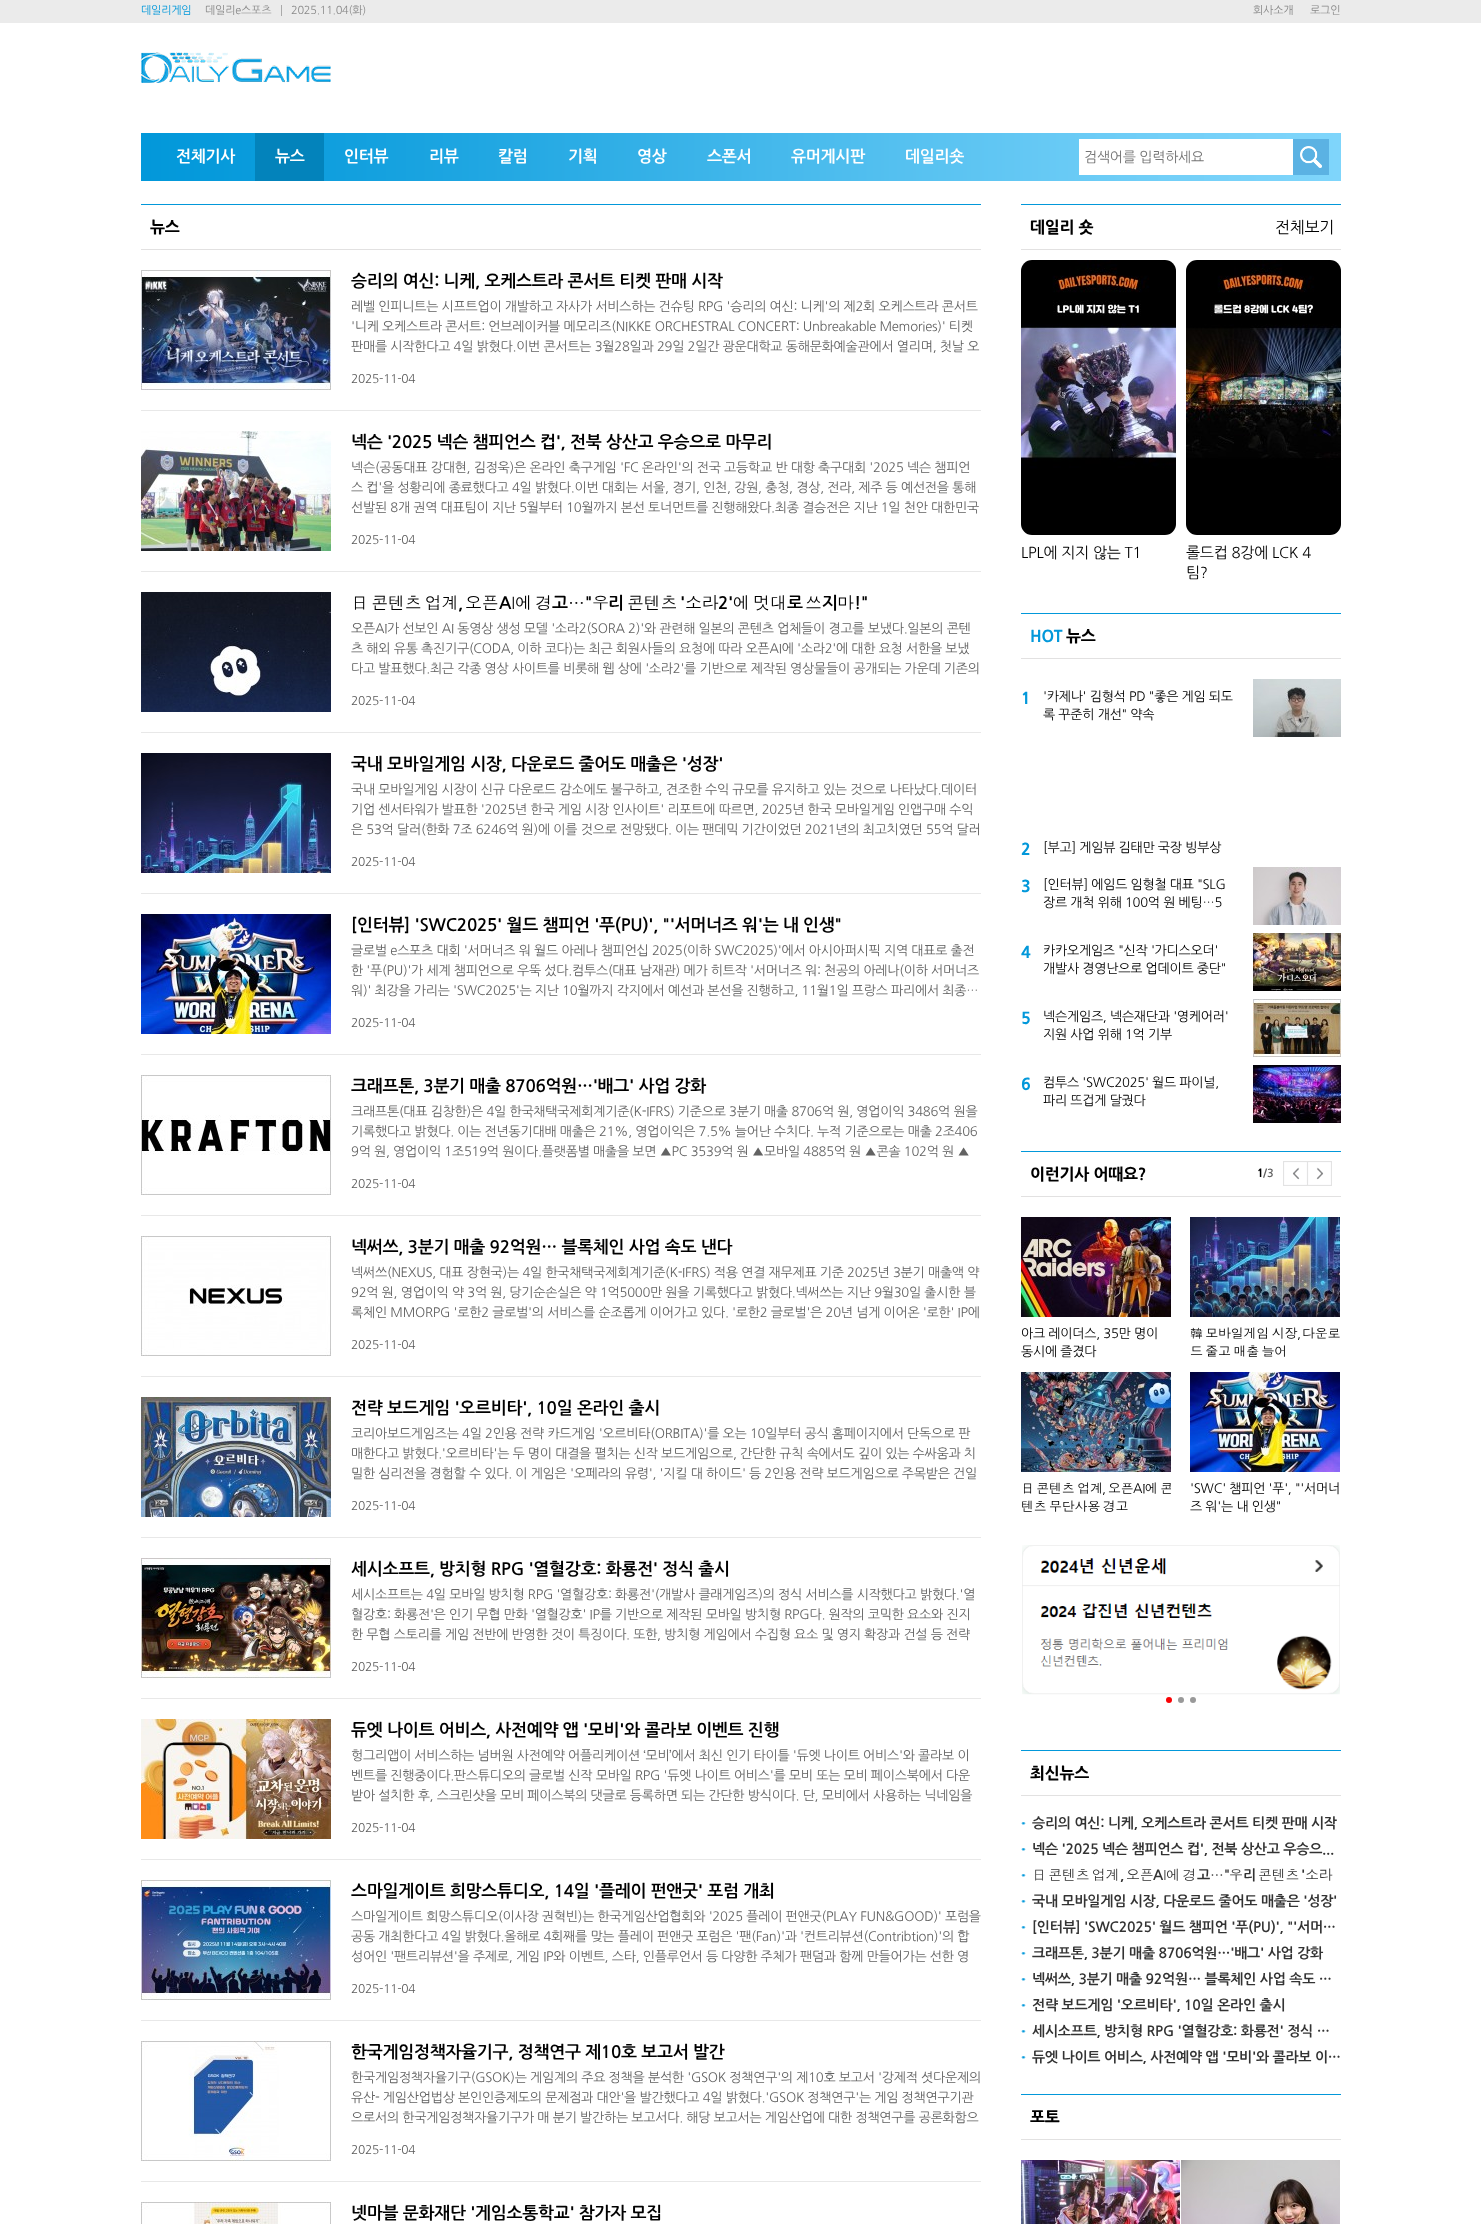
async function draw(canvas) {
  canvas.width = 1481
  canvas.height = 2224
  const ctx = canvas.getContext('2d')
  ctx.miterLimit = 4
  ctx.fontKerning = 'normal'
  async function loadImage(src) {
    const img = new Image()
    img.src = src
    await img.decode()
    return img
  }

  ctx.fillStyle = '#fff'
  ctx.fillRect(0, 0, 1481, 2224)
  ctx.fillStyle = '#ebebeb'
  ctx.fillRect(0, 0, 1481, 23)
  ctx.letterSpacing = '-0.25px'
  ctx.font = '11px NanumGothic'
  ctx.fillStyle = '#0298da'
  ctx.fillText('데일리게임', 141, 14)
  ctx.fillStyle = '#888'
  ctx.fillText('데일리e스포츠', 205, 14)
  ctx.fillStyle = '#aaa'
  ctx.fillRect(281, 5, 1, 11)
  ctx.fillStyle = '#888'
  ctx.fillText('2025.11.04(화)', 291, 14)
  ctx.fillText('회사소개', 1253, 14)
  ctx.fillText('로그인', 1310, 14)
  ctx.drawImage(await loadImage('image0.png'), 141, 52, 190, 31)
  ctx.drawImage(await loadImage('image1.png'), 141, 133, 1200, 48)
  ctx.font = 'bold 16px NanumGothic'
  ctx.fillStyle = '#fff'
  ctx.fillText('전체기사', 176, 162)
  ctx.fillStyle = '#0383bb'
  ctx.fillRect(255, 133, 69, 48)
  ctx.fillStyle = '#fff'
  ctx.fillText('뉴스', 275, 162)
  ctx.fillText('인터뷰', 344, 162)
  ctx.fillText('리뷰', 429, 162)
  ctx.fillText('칼럼', 498, 162)
  ctx.fillText('기획', 568, 162)
  ctx.fillText('영상', 637, 162)
  ctx.fillText('스폰서', 707, 162)
  ctx.fillText('유머게시판', 791, 162)
  ctx.fillText('데일리숏', 905, 162)
  ctx.fillStyle = '#5bb2e3'
  ctx.fillRect(1293, 139, 36, 36)
  ctx.fillStyle = '#fff'
  ctx.fillRect(1079, 139, 214, 36)
  ctx.font = '14px NanumGothic'
  ctx.fillStyle = '#757575'
  ctx.fillText('검색어를 입력하세요', 1084, 162)
  ctx.drawImage(await loadImage('image2.png'), 1300, 146, 22, 22)
  ctx.fillStyle = '#0298da'
  ctx.fillRect(141, 204, 840, 1)
  ctx.fillStyle = '#e2e1e1'
  ctx.fillRect(141, 249, 840, 1)
  ctx.font = '800 16px NanumGothic'
  ctx.fillStyle = '#000'
  ctx.fillText('뉴스', 150, 233)
  ctx.fillStyle = '#e8e8e8'
  ctx.fillRect(141, 410, 840, 1)
  ctx.drawImage(await loadImage('image3.png'), 141, 270, 190, 120)
  ctx.font = 'bold 17px NanumGothic'
  ctx.fillStyle = '#000'
  ctx.fillText('승리의 여신: 니케, 오케스트라 콘서트 티켓 판매 시작', 351, 287)
  ctx.font = '13px NanumGothic'
  ctx.fillStyle = '#626262'
  ctx.fillText('레벨 인피니트는 시프트업이 개발하고 자사가 서비스하는 건슈팅 RPG \'승리의 여신: 니케\'의 제2회 오케스트라 콘서트', 351, 311)
  ctx.fillText('\'니케 오케스트라 콘서트: 언브레이커블 메모리즈(NIKKE ORCHESTRAL CONCERT: Unbreakable Memories)\' 티켓', 351, 331)
  ctx.fillText('판매를 시작한다고 4일 밝혔다.이번 콘서트는 3월28일과 29일 2일간 광운대학교 동해문화예술관에서 열리며, 첫날 오', 351, 351)
  ctx.font = '12px NanumGothic'
  ctx.fillStyle = '#5b5b5b'
  ctx.fillText('2025-11-04', 351, 383)
  ctx.fillStyle = '#e8e8e8'
  ctx.fillRect(141, 571, 840, 1)
  ctx.drawImage(await loadImage('image4.png'), 141, 431, 190, 120)
  ctx.font = 'bold 17px NanumGothic'
  ctx.fillStyle = '#000'
  ctx.fillText('넥슨 \'2025 넥슨 챔피언스 컵\', 전북 상산고 우승으로 마무리', 351, 448)
  ctx.font = '13px NanumGothic'
  ctx.fillStyle = '#626262'
  ctx.fillText('넥슨(공동대표 강대현, 김정욱)은 온라인 축구게임 \'FC 온라인\'의 전국 고등학교 반 대항 축구대회 \'2025 넥슨 챔피언', 351, 472)
  ctx.fillText('스 컵\'을 성황리에 종료했다고 4일 밝혔다.이번 대회는 서울, 경기, 인천, 강원, 충청, 경상, 전라, 제주 등 예선전을 통해', 351, 492)
  ctx.fillText('선발된 8개 권역 대표팀이 지난 5월부터 10월까지 본선 토너먼트를 진행해왔다.최종 결승전은 지난 1일 천안 대한민국', 351, 512)
  ctx.font = '12px NanumGothic'
  ctx.fillStyle = '#5b5b5b'
  ctx.fillText('2025-11-04', 351, 544)
  ctx.fillStyle = '#e8e8e8'
  ctx.fillRect(141, 732, 840, 1)
  ctx.drawImage(await loadImage('image5.png'), 141, 592, 190, 120)
  ctx.wordSpacing = '-2px'
  ctx.font = '17px Dotum'
  ctx.fillStyle = '#000'
  ctx.fillText('日 콘텐츠 업계', 351, 609)
  ctx.wordSpacing = '0px'
  ctx.fillText('오픈', 465, 609)
  ctx.font = 'bold 17px NanumGothic'
  ctx.fillText('A', 499, 609)
  ctx.wordSpacing = '-2px'
  ctx.font = '17px Dotum'
  ctx.fillText('I에 경', 511, 609)
  ctx.wordSpacing = '0px'
  ctx.font = 'bold 17px NanumGothic'
  ctx.fillText('고', 552, 609)
  ctx.font = '17px Dotum'
  ctx.fillText('…', 568, 609)
  ctx.font = 'bold 17px NanumGothic'
  ctx.fillText('"', 585, 609)
  ctx.font = '17px Dotum'
  ctx.fillText('우', 592, 609)
  ctx.font = 'bold 17px NanumGothic'
  ctx.fillText('리', 608, 609)
  ctx.font = '17px Dotum'
  ctx.fillText('콘텐츠', 627, 609)
  ctx.font = 'bold 17px NanumGothic'
  ctx.fillText('\'', 680, 609)
  ctx.font = '17px Dotum'
  ctx.fillText('소라', 685, 609)
  ctx.font = 'bold 17px NanumGothic'
  ctx.fillText('2\'', 718, 609)
  ctx.wordSpacing = '-2px'
  ctx.font = '17px Dotum'
  ctx.fillText('에 멋대', 733, 609)
  ctx.wordSpacing = '0px'
  ctx.font = 'bold 17px NanumGothic'
  ctx.fillText('로', 787, 609)
  ctx.font = '17px Dotum'
  ctx.fillText('쓰', 805, 609)
  ctx.font = 'bold 17px NanumGothic'
  ctx.fillText('지', 822, 609)
  ctx.font = '17px Dotum'
  ctx.fillText('마', 837, 609)
  ctx.font = 'bold 17px NanumGothic'
  ctx.fillText('!"', 854, 609)
  ctx.fillText(',', 458, 609)
  ctx.font = '13px NanumGothic'
  ctx.fillStyle = '#626262'
  ctx.fillText('오픈AI가 선보인 AI 동영상 생성 모델 \'소라2(SORA 2)\'와 관련해 일본의 콘텐츠 업체들이 경고를 보냈다.일본의 콘텐', 351, 633)
  ctx.fillText('츠 해외 유통 촉진기구(CODA, 이하 코다)는 최근 회원사들의 요청에 따라 오픈AI에 \'소라2\'에 대한 요청 서한을 보냈', 351, 653)
  ctx.fillText('다고 발표했다.최근 각종 영상 사이트를 비롯해 웹 상에 \'소라2\'를 기반으로 제작된 영상물들이 공개되는 가운데 기존의', 351, 673)
  ctx.font = '12px NanumGothic'
  ctx.fillStyle = '#5b5b5b'
  ctx.fillText('2025-11-04', 351, 705)
  ctx.fillStyle = '#e8e8e8'
  ctx.fillRect(141, 893, 840, 1)
  ctx.drawImage(await loadImage('image6.png'), 141, 753, 190, 120)
  ctx.font = 'bold 17px NanumGothic'
  ctx.fillStyle = '#000'
  ctx.fillText('국내 모바일게임 시장, 다운로드 줄어도 매출은 \'성장\'', 351, 770)
  ctx.font = '13px NanumGothic'
  ctx.fillStyle = '#626262'
  ctx.fillText('국내 모바일게임 시장이 신규 다운로드 감소에도 불구하고, 견조한 수익 규모를 유지하고 있는 것으로 나타났다.데이터', 351, 794)
  ctx.fillText('기업 센서타워가 발표한 \'2025년 한국 게임 시장 인사이트\' 리포트에 따르면, 2025년 한국 모바일게임 인앱구매 수익', 351, 814)
  ctx.fillText('은 53억 달러(한화 7조 6246억 원)에 이를 것으로 전망됐다. 이는 팬데믹 기간이었던 2021년의 최고치였던 55억 달러', 351, 834)
  ctx.font = '12px NanumGothic'
  ctx.fillStyle = '#5b5b5b'
  ctx.fillText('2025-11-04', 351, 866)
  ctx.fillStyle = '#e8e8e8'
  ctx.fillRect(141, 1054, 840, 1)
  ctx.drawImage(await loadImage('image7.png'), 141, 914, 190, 120)
  ctx.font = 'bold 17px NanumGothic'
  ctx.fillStyle = '#000'
  ctx.fillText('[인터뷰] \'SWC2025\' 월드 챔피언 \'푸(PU)\', "\'서머너즈 워\'는 내 인생"', 351, 931)
  ctx.font = '13px NanumGothic'
  ctx.fillStyle = '#626262'
  ctx.fillText('글로벌 e스포츠 대회 \'서머너즈 워 월드 아레나 챔피언십 2025(이하 SWC2025)\'에서 아시아퍼시픽 지역 대표로 출전', 351, 955)
  ctx.fillText('한 \'푸(PU)\'가 세계 챔피언으로 우뚝 섰다.컴투스(대표 남재관) 메가 히트작 \'서머너즈 워: 천공의 아레나(이하 서머너즈', 351, 975)
  ctx.fillText('워)\' 최강을 가리는 \'SWC2025\'는 지난 10월까지 각지에서 예선과 본선을 진행하고, 11월1일 프랑스 파리에서 최종…', 351, 995)
  ctx.font = '12px NanumGothic'
  ctx.fillStyle = '#5b5b5b'
  ctx.fillText('2025-11-04', 351, 1027)
  ctx.fillStyle = '#e8e8e8'
  ctx.fillRect(141, 1215, 840, 1)
  ctx.drawImage(await loadImage('image8.png'), 141, 1075, 190, 120)
  ctx.font = 'bold 17px NanumGothic'
  ctx.fillStyle = '#000'
  ctx.fillText('크래프톤, 3분기 매출 8706억원…\'배그\' 사업 강화', 351, 1092)
  ctx.font = '13px NanumGothic'
  ctx.fillStyle = '#626262'
  ctx.fillText('크래프톤(대표 김창한)은 4일 한국채택국제회계기준(K-IFRS) 기준으로 3분기 매출 8706억 원, 영업이익 3486억 원을', 351, 1116)
  ctx.fillText('기록했다고 밝혔다. 이는 전년동기대배 매출은 21%, 영업이익은 7.5% 늘어난 수치다. 누적 기준으로는 매출 2조406', 351, 1136)
  ctx.fillText('9억 원, 영업이익 1조519억 원이다.플랫폼별 매출을 보면 ▲PC 3539억 원 ▲모바일 4885억 원 ▲콘솔 102억 원 ▲', 351, 1156)
  ctx.font = '12px NanumGothic'
  ctx.fillStyle = '#5b5b5b'
  ctx.fillText('2025-11-04', 351, 1188)
  ctx.fillStyle = '#e8e8e8'
  ctx.fillRect(141, 1376, 840, 1)
  ctx.drawImage(await loadImage('image9.png'), 141, 1236, 190, 120)
  ctx.font = 'bold 17px NanumGothic'
  ctx.fillStyle = '#000'
  ctx.fillText('넥써쓰, 3분기 매출 92억원… 블록체인 사업 속도 낸다', 351, 1253)
  ctx.font = '13px NanumGothic'
  ctx.fillStyle = '#626262'
  ctx.fillText('넥써쓰(NEXUS, 대표 장현국)는 4일 한국채택국제회계기준(K-IFRS) 적용 연결 재무제표 기준 2025년 3분기 매출액 약', 351, 1277)
  ctx.fillText('92억 원, 영업이익 약 3억 원, 당기순손실은 약 1억5000만 원을 기록했다고 밝혔다.넥써쓰는 지난 9월30일 출시한 블', 351, 1297)
  ctx.fillText('록체인 MMORPG \'로한2 글로벌\'의 서비스를 순조롭게 이어가고 있다. \'로한2 글로벌\'은 20년 넘게 이어온 \'로한\' IP에', 351, 1317)
  ctx.font = '12px NanumGothic'
  ctx.fillStyle = '#5b5b5b'
  ctx.fillText('2025-11-04', 351, 1349)
  ctx.fillStyle = '#e8e8e8'
  ctx.fillRect(141, 1537, 840, 1)
  ctx.drawImage(await loadImage('image10.png'), 141, 1397, 190, 120)
  ctx.font = 'bold 17px NanumGothic'
  ctx.fillStyle = '#000'
  ctx.fillText('전략 보드게임 \'오르비타\', 10일 온라인 출시', 351, 1414)
  ctx.font = '13px NanumGothic'
  ctx.fillStyle = '#626262'
  ctx.fillText('코리아보드게임즈는 4일 2인용 전략 카드게임 \'오르비타(ORBITA)\'를 오는 10일부터 공식 홈페이지에서 단독으로 판', 351, 1438)
  ctx.fillText('매한다고 밝혔다.\'오르비타\'는 두 명이 대결을 펼치는 신작 보드게임으로, 간단한 규칙 속에서도 깊이 있는 수싸움과 치', 351, 1458)
  ctx.fillText('밀한 심리전을 경험할 수 있다. 이 게임은 \'오페라의 유령\', \'지킬 대 하이드\' 등 2인용 전략 보드게임으로 주목받은 건일', 351, 1478)
  ctx.font = '12px NanumGothic'
  ctx.fillStyle = '#5b5b5b'
  ctx.fillText('2025-11-04', 351, 1510)
  ctx.fillStyle = '#e8e8e8'
  ctx.fillRect(141, 1698, 840, 1)
  ctx.drawImage(await loadImage('image11.png'), 141, 1558, 190, 120)
  ctx.font = 'bold 17px NanumGothic'
  ctx.fillStyle = '#000'
  ctx.fillText('세시소프트, 방치형 RPG \'열혈강호: 화룡전\' 정식 출시', 351, 1575)
  ctx.font = '13px NanumGothic'
  ctx.fillStyle = '#626262'
  ctx.fillText('세시소프트는 4일 모바일 방치형 RPG \'열혈강호: 화룡전\'(개발사 클래게임즈)의 정식 서비스를 시작했다고 밝혔다.\'열', 351, 1599)
  ctx.fillText('혈강호: 화룡전\'은 인기 무협 만화 \'열혈강호\' IP를 기반으로 제작된 모바일 방치형 RPG다. 원작의 코믹한 요소와 진지', 351, 1619)
  ctx.fillText('한 무협 스토리를 게임 전반에 반영한 것이 특징이다. 또한, 방치형 게임에서 수집형 요소 및 영지 확장과 건설 등 전략', 351, 1639)
  ctx.font = '12px NanumGothic'
  ctx.fillStyle = '#5b5b5b'
  ctx.fillText('2025-11-04', 351, 1671)
  ctx.fillStyle = '#e8e8e8'
  ctx.fillRect(141, 1859, 840, 1)
  ctx.drawImage(await loadImage('image12.png'), 141, 1719, 190, 120)
  ctx.font = 'bold 17px NanumGothic'
  ctx.fillStyle = '#000'
  ctx.fillText('듀엣 나이트 어비스, 사전예약 앱 \'모비\'와 콜라보 이벤트 진행', 351, 1736)
  ctx.font = '13px NanumGothic'
  ctx.fillStyle = '#626262'
  ctx.fillText('헝그리앱이 서비스하는 넘버원 사전예약 어플리케이션 ‘모비’에서 최신 인기 타이틀 \'듀엣 나이트 어비스\'와 콜라보 이', 351, 1760)
  ctx.fillText('벤트를 진행중이다.판스튜디오의 글로벌 신작 모바일 RPG \'듀엣 나이트 어비스\'를 모비 또는 모비 페이스북에서 다운', 351, 1780)
  ctx.fillText('받아 설치한 후, 스크린샷을 모비 페이스북의 댓글로 등록하면 되는 간단한 방식이다. 단, 모비에서 사용하는 닉네임을', 351, 1800)
  ctx.font = '12px NanumGothic'
  ctx.fillStyle = '#5b5b5b'
  ctx.fillText('2025-11-04', 351, 1832)
  ctx.fillStyle = '#e8e8e8'
  ctx.fillRect(141, 2020, 840, 1)
  ctx.drawImage(await loadImage('image13.png'), 141, 1880, 190, 120)
  ctx.font = 'bold 17px NanumGothic'
  ctx.fillStyle = '#000'
  ctx.fillText('스마일게이트 희망스튜디오, 14일 \'플레이 펀앤굿\' 포럼 개최', 351, 1897)
  ctx.font = '13px NanumGothic'
  ctx.fillStyle = '#626262'
  ctx.fillText('스마일게이트 희망스튜디오(이사장 권혁빈)는 한국게임산업협회와 \'2025 플레이 펀앤굿(PLAY FUN&GOOD)\' 포럼을', 351, 1921)
  ctx.fillText('공동 개최한다고 4일 밝혔다.올해로 4회째를 맞는 플레이 펀앤굿 포럼은 \'팬(Fan)\'과 \'컨트리뷰션(Contribtion)\'의 합', 351, 1941)
  ctx.fillText('성어인 \'팬트리뷰션\'을 주제로, 게임 IP와 이벤트, 스타, 인플루언서 등 다양한 주체가 팬덤과 함께 만들어가는 선한 영', 351, 1961)
  ctx.font = '12px NanumGothic'
  ctx.fillStyle = '#5b5b5b'
  ctx.fillText('2025-11-04', 351, 1993)
  ctx.fillStyle = '#e8e8e8'
  ctx.fillRect(141, 2181, 840, 1)
  ctx.drawImage(await loadImage('image14.png'), 141, 2041, 190, 120)
  ctx.font = 'bold 17px NanumGothic'
  ctx.fillStyle = '#000'
  ctx.fillText('한국게임정책자율기구, 정책연구 제10호 보고서 발간', 351, 2058)
  ctx.font = '13px NanumGothic'
  ctx.fillStyle = '#626262'
  ctx.fillText('한국게임정책자율기구(GSOK)는 게임계의 주요 정책을 분석한 \'GSOK 정책연구\'의 제10호 보고서 \'강제적 셧다운제의', 351, 2082)
  ctx.fillText('유산- 게임산업법상 본인인증제도의 문제점과 대안\'을 발간했다고 4일 밝혔다.\'GSOK 정책연구\'는 게임 정책연구기관', 351, 2102)
  ctx.fillText('으로서의 한국게임정책자율기구가 매 분기 발간하는 보고서다. 해당 보고서는 게임산업에 대한 정책연구를 공론화함으', 351, 2122)
  ctx.font = '12px NanumGothic'
  ctx.fillStyle = '#5b5b5b'
  ctx.fillText('2025-11-04', 351, 2154)
  ctx.drawImage(await loadImage('image15.png'), 141, 2202, 190, 22)
  ctx.font = 'bold 17px NanumGothic'
  ctx.fillStyle = '#000'
  ctx.fillText('넷마블 문화재단 \'게임소통학교\' 참가자 모집', 351, 2219)
  ctx.fillStyle = '#0298da'
  ctx.fillRect(1021, 204, 320, 1)
  ctx.fillStyle = '#e2e1e1'
  ctx.fillRect(1021, 249, 320, 1)
  ctx.font = '800 16px NanumGothic'
  ctx.fillStyle = '#000'
  ctx.fillText('데일리 숏', 1030, 233)
  ctx.font = '16px NanumGothic'
  ctx.fillText('전체보기', 1275, 233)
  ctx.drawImage(await loadImage('image16.png'), 1021, 260, 155, 275)
  ctx.font = '15px NanumGothic'
  ctx.fillText('LPL에 지지 않는 T1', 1021, 558)
  ctx.drawImage(await loadImage('image17.png'), 1186, 260, 155, 275)
  ctx.fillText('롤드컵 8강에 LCK 4', 1186, 558)
  ctx.fillText('팀?', 1186, 578)
  ctx.fillStyle = '#0298da'
  ctx.fillRect(1021, 613, 320, 1)
  ctx.fillStyle = '#e2e1e1'
  ctx.fillRect(1021, 658, 320, 1)
  ctx.font = '800 16px NanumGothic'
  ctx.fillStyle = '#0298da'
  ctx.fillText('HOT', 1030, 642)
  ctx.fillStyle = '#000'
  ctx.fillText('뉴스', 1066, 642)
  ctx.fillStyle = '#0298da'
  ctx.fillText('1', 1021, 704)
  ctx.font = '13px NanumGothic'
  ctx.fillStyle = '#000'
  ctx.fillText('\'카제나\' 김형석 PD "좋은 게임 되도', 1043, 701)
  ctx.fillText('록 꾸준히 개선" 약속', 1043, 719)
  ctx.drawImage(await loadImage('image18.png'), 1253, 679, 88, 58)
  ctx.font = '800 16px NanumGothic'
  ctx.fillStyle = '#0298da'
  ctx.fillText('2', 1021, 855)
  ctx.font = '13px NanumGothic'
  ctx.fillStyle = '#000'
  ctx.fillText('[부고] 게임뷰 김태만 국장 빙부상', 1043, 852)
  ctx.font = '800 16px NanumGothic'
  ctx.fillStyle = '#0298da'
  ctx.fillText('3', 1021, 892)
  ctx.font = '13px NanumGothic'
  ctx.fillStyle = '#000'
  ctx.fillText('[인터뷰] 에임드 임형철 대표 "SLG', 1043, 889)
  ctx.fillText('장르 개척 위해 100억 원 베팅…5', 1043, 907)
  ctx.drawImage(await loadImage('image19.png'), 1253, 867, 88, 58)
  ctx.font = '800 16px NanumGothic'
  ctx.fillStyle = '#0298da'
  ctx.fillText('4', 1021, 958)
  ctx.font = '13px NanumGothic'
  ctx.fillStyle = '#000'
  ctx.fillText('카카오게임즈 "신작 \'가디스오더\'', 1043, 955)
  ctx.fillText('개발사 경영난으로 업데이트 중단"', 1043, 973)
  ctx.drawImage(await loadImage('image20.png'), 1253, 933, 88, 58)
  ctx.font = '800 16px NanumGothic'
  ctx.fillStyle = '#0298da'
  ctx.fillText('5', 1021, 1024)
  ctx.font = '13px NanumGothic'
  ctx.fillStyle = '#000'
  ctx.fillText('넥슨게임즈, 넥슨재단과 \'영케어러\'', 1043, 1021)
  ctx.fillText('지원 사업 위해 1억 기부', 1043, 1039)
  ctx.drawImage(await loadImage('image21.png'), 1253, 999, 88, 58)
  ctx.font = '800 16px NanumGothic'
  ctx.fillStyle = '#0298da'
  ctx.fillText('6', 1021, 1090)
  ctx.font = '13px NanumGothic'
  ctx.fillStyle = '#000'
  ctx.fillText('컴투스 \'SWC2025\' 월드 파이널,', 1043, 1087)
  ctx.fillText('파리 뜨겁게 달궜다', 1043, 1105)
  ctx.drawImage(await loadImage('image22.png'), 1253, 1065, 88, 58)
  ctx.fillStyle = '#0298da'
  ctx.fillRect(1021, 1151, 320, 1)
  ctx.fillStyle = '#e2e1e1'
  ctx.fillRect(1021, 1196, 320, 1)
  ctx.font = '800 16px NanumGothic'
  ctx.fillStyle = '#000'
  ctx.fillText('이런기사 어때요?', 1030, 1180)
  ctx.font = '800 11px NanumGothic'
  ctx.fillText('1', 1257, 1177)
  ctx.letterSpacing = '0px'
  ctx.font = 'bold 11px NanumGothic'
  ctx.fillStyle = '#626262'
  ctx.fillText('/', 1263, 1177)
  ctx.letterSpacing = '-0.25px'
  ctx.fillText('3', 1267, 1177)
  ctx.drawImage(await loadImage('image23.png'), 1284, 1162, 23, 23)
  ctx.fillStyle = '#e3e3e3'
  ctx.fillRect(1283, 1161, 24, 1)
  ctx.fillRect(1283, 1185, 24, 1)
  ctx.fillRect(1283, 1161, 1, 25)
  ctx.drawImage(await loadImage('image24.png'), 1308, 1162, 23, 23)
  ctx.strokeStyle = '#e3e3e3'
  ctx.strokeRect(1307.5, 1161.5, 24, 24)
  ctx.drawImage(await loadImage('image25.png'), 1021, 1217, 150, 100)
  ctx.font = '13px NanumGothic'
  ctx.fillStyle = '#000'
  ctx.fillText('아크 레이더스, 35만 명이', 1021, 1338)
  ctx.fillText('동시에 즐겼다', 1021, 1356)
  ctx.drawImage(await loadImage('image26.png'), 1190, 1217, 150, 100)
  ctx.wordSpacing = '-1.5px'
  ctx.font = '13px Dotum'
  ctx.fillText('韓 모바일게임 시장', 1190, 1338)
  ctx.wordSpacing = '0px'
  ctx.font = '13px NanumGothic'
  ctx.fillText(',', 1297, 1338)
  ctx.font = '13px Dotum'
  ctx.fillText('다운로', 1302, 1338)
  ctx.wordSpacing = '-1.5px'
  ctx.fillText('드 줄고 매출 늘어', 1190, 1356)
  ctx.drawImage(await loadImage('image27.png'), 1021, 1372, 150, 100)
  ctx.fillText('日 콘텐츠 업계', 1021, 1493)
  ctx.wordSpacing = '0px'
  ctx.font = '13px NanumGothic'
  ctx.fillText(',', 1102, 1493)
  ctx.font = '13px Dotum'
  ctx.fillText('오픈', 1108, 1493)
  ctx.font = '13px NanumGothic'
  ctx.fillText('AI', 1133, 1493)
  ctx.save()
  ctx.beginPath()
  ctx.rect(1021, 1480, 150, 36)
  ctx.clip()
  ctx.wordSpacing = '-1.5px'
  ctx.font = '13px Dotum'
  ctx.fillText('에 콘', 1145, 1493)
  ctx.restore()
  ctx.wordSpacing = '-1.5px'
  ctx.font = '13px Dotum'
  ctx.fillText('텐츠 무단사용 경고', 1021, 1511)
  ctx.drawImage(await loadImage('image28.png'), 1190, 1372, 150, 100)
  ctx.wordSpacing = '0px'
  ctx.font = '13px NanumGothic'
  ctx.fillText('\'SWC\' 챔피언 \'푸\', "\'서머너', 1190, 1493)
  ctx.fillText('즈 워\'는 내 인생"', 1190, 1511)
  ctx.drawImage(await loadImage('image29.png'), 1022, 1545, 318, 158)
  ctx.fillStyle = '#0298da'
  ctx.fillRect(1021, 1750, 320, 1)
  ctx.fillStyle = '#e2e1e1'
  ctx.fillRect(1021, 1795, 320, 1)
  ctx.font = '800 16px NanumGothic'
  ctx.fillStyle = '#000'
  ctx.fillText('최신뉴스', 1030, 1779)
  ctx.drawImage(await loadImage('image30.png'), 1021, 1822, 5, 3)
  ctx.font = 'bold 14px NanumGothic'
  ctx.fillStyle = '#333'
  ctx.fillText('승리의 여신: 니케, 오케스트라 콘서트 티켓 판매 시작', 1032, 1828)
  ctx.drawImage(await loadImage('image30.png'), 1021, 1848, 5, 3)
  ctx.fillText('넥슨 \'2025 넥슨 챔피언스 컵\', 전북 상산고 우승으...', 1032, 1854)
  ctx.drawImage(await loadImage('image30.png'), 1021, 1874, 5, 3)
  ctx.wordSpacing = '-2px'
  ctx.font = '14px Dotum'
  ctx.fillText('日 콘텐츠 업계', 1032, 1880)
  ctx.wordSpacing = '0px'
  ctx.fillText('오픈', 1126, 1880)
  ctx.font = 'bold 14px NanumGothic'
  ctx.fillText('A', 1153, 1880)
  ctx.wordSpacing = '-2px'
  ctx.font = '14px Dotum'
  ctx.fillText('I에 경', 1163, 1880)
  ctx.wordSpacing = '0px'
  ctx.font = 'bold 14px NanumGothic'
  ctx.fillText('고', 1197, 1880)
  ctx.fillText('"', 1224, 1880)
  ctx.font = '14px Dotum'
  ctx.fillText('우', 1229, 1880)
  ctx.font = 'bold 14px NanumGothic'
  ctx.fillText('리', 1243, 1880)
  ctx.font = '14px Dotum'
  ctx.fillText('콘텐츠', 1258, 1880)
  ctx.font = 'bold 14px NanumGothic'
  ctx.fillText('\'', 1301, 1880)
  ctx.font = '14px Dotum'
  ctx.fillText('소라', 1305, 1880)
  ctx.fillText('…', 1210, 1880)
  ctx.font = 'bold 14px NanumGothic'
  ctx.fillText(',', 1120, 1880)
  ctx.drawImage(await loadImage('image30.png'), 1021, 1900, 5, 3)
  ctx.fillText('국내 모바일게임 시장, 다운로드 줄어도 매출은 \'성장\'', 1032, 1906)
  ctx.drawImage(await loadImage('image30.png'), 1021, 1926, 5, 3)
  ctx.fillText('[인터뷰] \'SWC2025\' 월드 챔피언 \'푸(PU)\', "\'서머…', 1032, 1932)
  ctx.drawImage(await loadImage('image30.png'), 1021, 1952, 5, 3)
  ctx.fillText('크래프톤, 3분기 매출 8706억원…\'배그\' 사업 강화', 1032, 1958)
  ctx.drawImage(await loadImage('image30.png'), 1021, 1978, 5, 3)
  ctx.fillText('넥써쓰, 3분기 매출 92억원… 블록체인 사업 속도 …', 1032, 1984)
  ctx.drawImage(await loadImage('image30.png'), 1021, 2004, 5, 3)
  ctx.fillText('전략 보드게임 \'오르비타\', 10일 온라인 출시', 1032, 2010)
  ctx.drawImage(await loadImage('image30.png'), 1021, 2030, 5, 3)
  ctx.fillText('세시소프트, 방치형 RPG \'열혈강호: 화룡전\' 정식 …', 1032, 2036)
  ctx.drawImage(await loadImage('image30.png'), 1021, 2056, 5, 3)
  ctx.fillText('듀엣 나이트 어비스, 사전예약 앱 \'모비\'와 콜라보 이…', 1032, 2062)
  ctx.fillStyle = '#0298da'
  ctx.fillRect(1021, 2094, 320, 1)
  ctx.fillStyle = '#e2e1e1'
  ctx.fillRect(1021, 2139, 320, 1)
  ctx.font = '800 16px NanumGothic'
  ctx.fillStyle = '#000'
  ctx.fillText('포토', 1030, 2123)
  ctx.drawImage(await loadImage('image31.png'), 1021, 2160, 159, 64)
  ctx.drawImage(await loadImage('image32.png'), 1181, 2160, 159, 64)
}

draw(document.querySelector('canvas'))
